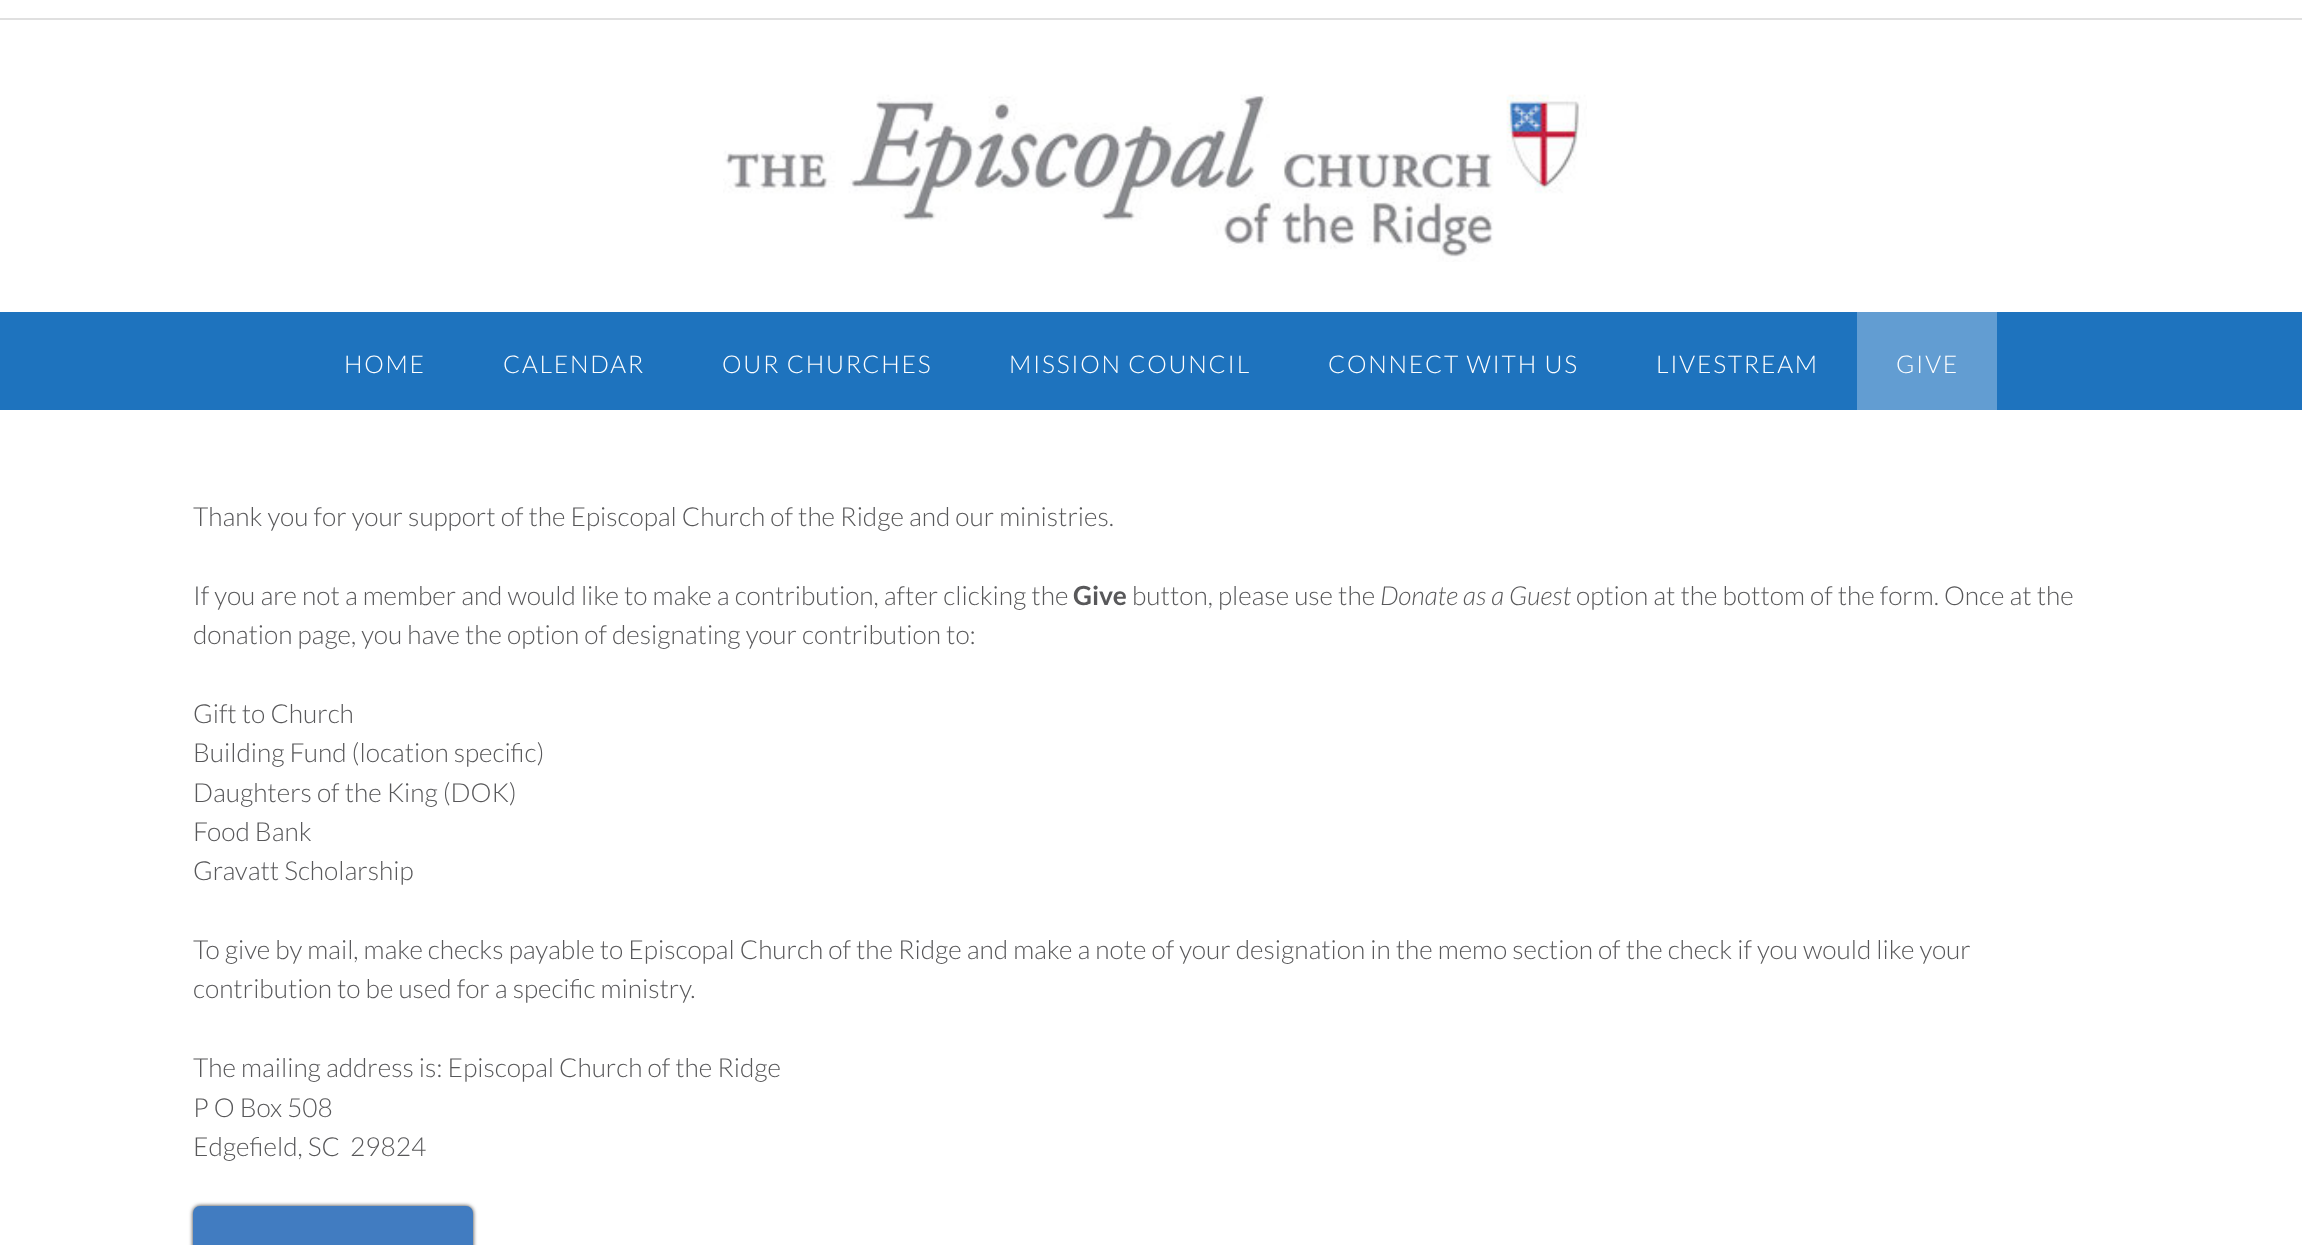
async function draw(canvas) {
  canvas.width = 2302
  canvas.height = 1245
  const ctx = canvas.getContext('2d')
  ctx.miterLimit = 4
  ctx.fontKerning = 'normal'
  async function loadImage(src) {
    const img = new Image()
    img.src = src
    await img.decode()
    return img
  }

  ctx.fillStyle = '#fff'
  ctx.fillRect(0, 0, 2302, 1245)
  ctx.fillStyle = '#e0e0e0'
  ctx.fillRect(0, 18, 2302, 2)
  ctx.drawImage(await loadImage('image0.png'), 723, 94, 864, 168)
  ctx.fillStyle = '#1e73be'
  ctx.fillRect(0, 312, 2302, 98)
  ctx.letterSpacing = '1.75px'
  ctx.font = '300 24.5px Lato'
  ctx.fillStyle = '#fff'
  ctx.fillText('HOME', 344, 373)
  ctx.fillText('CALENDAR', 503, 373)
  ctx.fillText('OUR CHURCHES', 722, 373)
  ctx.fillText('MISSION COUNCIL', 1009, 373)
  ctx.fillText('CONNECT WITH US', 1328, 373)
  ctx.fillText('LIVESTREAM', 1656, 373)
  ctx.fillStyle = '#629dd2'
  ctx.fillRect(1857, 312, 140, 98)
  ctx.fillStyle = '#fff'
  ctx.fillText('GIVE', 1896, 373)
  ctx.letterSpacing = '0px'
  ctx.font = '300 26.25px Lato'
  ctx.fillStyle = '#58585a'
  ctx.fillText('Thank you for your support of the Episcopal Church of the Ridge and our ministries.', 193, 526)
  ctx.fillText('If you are not a member and would like to make a contribution, after clicking the', 193, 605)
  ctx.font = 'bold 26.25px Lato'
  ctx.fillText('Give', 1073, 605)
  ctx.font = '300 26.25px Lato'
  ctx.fillText('button, please use the', 1132, 605)
  ctx.font = 'italic 300 26.25px Lato'
  ctx.fillText('Donate as a Guest', 1380, 605)
  ctx.font = '300 26.25px Lato'
  ctx.fillText('option at the bottom of the form. Once at the', 1576, 605)
  ctx.fillText('donation page, you have the option of designating your contribution to:', 193, 644)
  ctx.fillText('Gift to Church', 193, 723)
  ctx.fillText('Building Fund (location specific)', 193, 762)
  ctx.fillText('Daughters of the King (DOK)', 193, 802)
  ctx.fillText('Food Bank', 193, 841)
  ctx.fillText('Gravatt Scholarship', 193, 880)
  ctx.fillText('To give by mail, make checks payable to Episcopal Church of the Ridge and make a note of your designation in the memo section of the check if you would like your', 193, 959)
  ctx.fillText('contribution to be used for a specific ministry.', 193, 998)
  ctx.fillText('The mailing address is: Episcopal Church of the Ridge', 193, 1077)
  ctx.fillText('P O Box 508', 193, 1117)
  ctx.fillText('Edgefield, SC  29824', 193, 1156)
  ctx.fillStyle = '#333'
  ctx.filter = 'blur(2px)'
  ctx.beginPath()
  ctx.roundRect(193, 1206, 280, 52, 7)
  ctx.fill()
  ctx.filter = 'none'
  ctx.fillStyle = '#417cc1'
  ctx.beginPath()
  ctx.roundRect(195, 1208, 276, 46, 5)
  ctx.fill()
  ctx.strokeStyle = '#417cc1'
  ctx.lineWidth = 4
  ctx.stroke()
}

draw(document.querySelector('canvas'))
